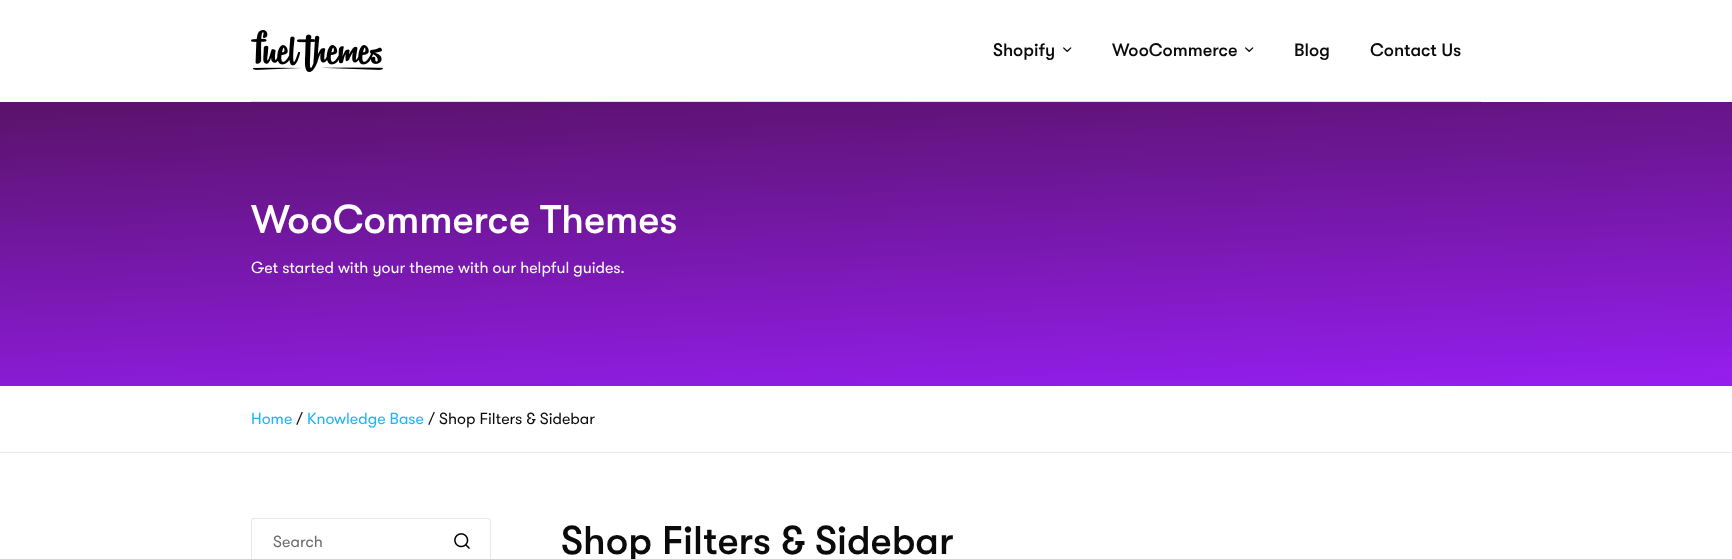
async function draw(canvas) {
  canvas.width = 1732
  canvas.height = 559
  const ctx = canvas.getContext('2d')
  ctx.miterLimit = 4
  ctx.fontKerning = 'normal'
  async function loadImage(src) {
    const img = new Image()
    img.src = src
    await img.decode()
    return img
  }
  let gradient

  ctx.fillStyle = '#fff'
  ctx.fillRect(0, 0, 1732, 559)
  ctx.fillStyle = '#e1e1e1'
  ctx.fillRect(251, 101, 1230, 1)
  ctx.drawImage(await loadImage('image0.png'), 251, 30, 132, 42)
  ctx.font = '500 18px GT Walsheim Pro'
  ctx.fillStyle = '#0a0a0a'
  ctx.fillText('Shopify', 993, 56)
  ctx.drawImage(await loadImage('image1.png'), 1063, 47, 9, 5)
  ctx.fillText('WooCommerce', 1112, 56)
  ctx.drawImage(await loadImage('image1.png'), 1245, 47, 9, 5)
  ctx.fillText('Blog', 1294, 56)
  ctx.fillText('Contact Us', 1370, 56)
  gradient = ctx.createLinearGradient(858, 66, 875, 459)
  gradient.addColorStop(0.02, '#5b136d')
  gradient.addColorStop(1, '#9c1ffe')
  ctx.fillStyle = gradient
  ctx.fillRect(0, 102, 1732, 284)
  ctx.font = '500 40px GT Walsheim Pro'
  ctx.fillStyle = '#fff'
  ctx.fillText('WooCommerce Themes', 251, 233)
  ctx.font = '16px GT Walsheim Pro'
  ctx.fillText('Get started with your theme with our helpful guides.', 251, 273)
  ctx.fillStyle = '#e3e9ee'
  ctx.fillRect(0, 452, 1732, 1)
  ctx.fillStyle = '#1fb3fe'
  ctx.fillText('Home', 251, 424)
  ctx.fillStyle = '#0a0a0a'
  ctx.fillText('/', 296, 424)
  ctx.fillStyle = '#1fb3fe'
  ctx.fillText('Knowledge Base', 307, 424)
  ctx.fillStyle = '#0a0a0a'
  ctx.fillText('/ Shop Filters & Sidebar', 428, 424)
  ctx.beginPath()
  ctx.roundRect(251.5, 518.5, 239, 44, 2.5)
  ctx.strokeStyle = '#e6e6e6'
  ctx.stroke()
  ctx.fillStyle = '#6c6c6c'
  ctx.fillText('Search', 273, 547)
  ctx.drawImage(await loadImage('image2.png'), 454, 533, 16, 16)
  ctx.font = '500 40px GT Walsheim Pro'
  ctx.fillStyle = '#0a0a0a'
  ctx.fillText('Shop Filters & Sidebar', 561, 554)
}

draw(document.querySelector('canvas'))
